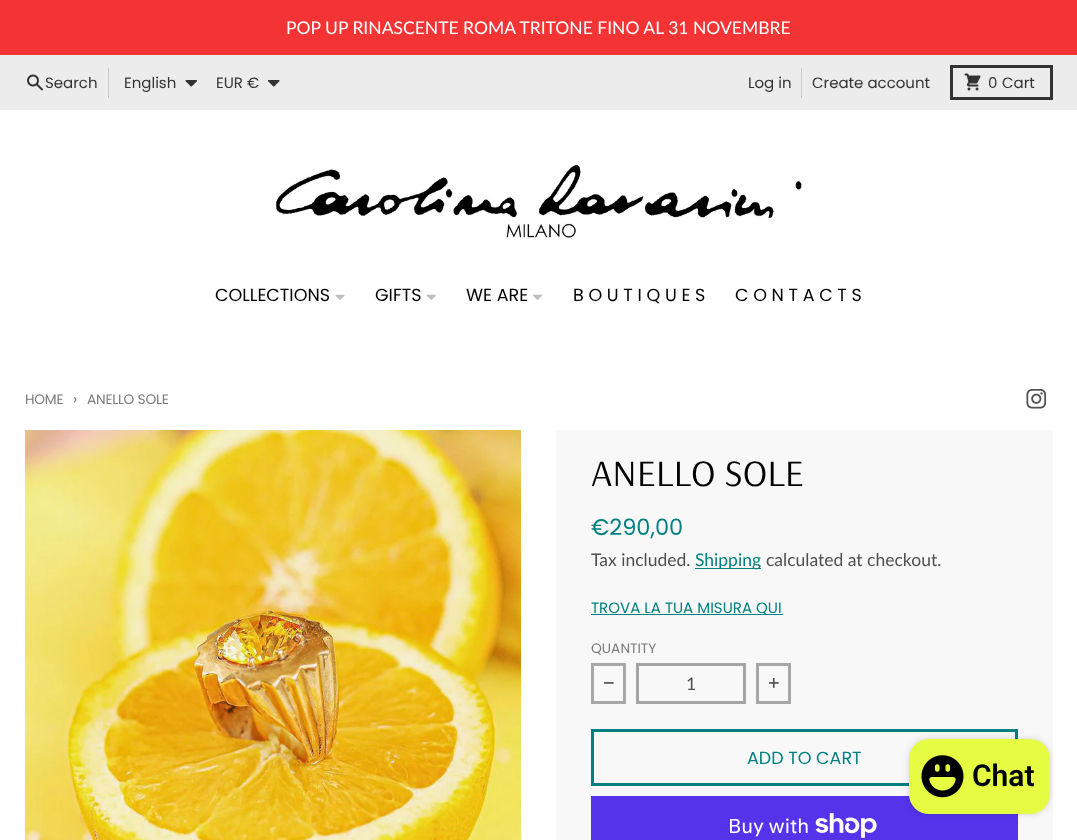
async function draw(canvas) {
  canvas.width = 1077
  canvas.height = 840
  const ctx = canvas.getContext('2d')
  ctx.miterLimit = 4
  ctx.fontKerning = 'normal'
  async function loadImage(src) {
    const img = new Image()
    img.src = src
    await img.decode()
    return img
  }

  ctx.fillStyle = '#ececec'
  ctx.fillRect(0, 0, 1077, 840)
  ctx.fillStyle = '#f43434'
  ctx.fillRect(0, 0, 1077, 55)
  ctx.font = '17.5px Lato'
  ctx.fillStyle = '#fff'
  ctx.fillText('POP UP RINASCENTE ROMA TRITONE FINO AL 31 NOVEMBRE', 286, 34)
  ctx.drawImage(await loadImage('image0.png'), 27, 74, 16, 17)
  ctx.font = '15px Poppins'
  ctx.fillStyle = '#333'
  ctx.fillText('Search', 45, 88)
  ctx.fillStyle = '#c7c7c7'
  ctx.fillRect(108, 68, 1, 30)
  ctx.fillStyle = '#333'
  ctx.fillText('English', 124, 88)
  ctx.drawImage(await loadImage('image1.png'), 185, 80, 12, 7)
  ctx.fillText('EUR €', 216, 88)
  ctx.drawImage(await loadImage('image2.png'), 268, 80, 12, 7)
  ctx.fillText('Log in', 748, 88)
  ctx.fillStyle = '#c7c7c7'
  ctx.fillRect(801, 68, 1, 30)
  ctx.fillStyle = '#333'
  ctx.fillText('Create account', 812, 88)
  ctx.strokeStyle = '#333'
  ctx.lineWidth = 3
  ctx.strokeRect(951.5, 66.5, 100, 32)
  ctx.drawImage(await loadImage('image3.png'), 964, 73, 17, 18)
  ctx.fillText('0', 988, 88)
  ctx.fillText('Cart', 1002, 88)
  ctx.fillStyle = '#fff'
  ctx.fillRect(0, 110, 1077, 730)
  ctx.drawImage(await loadImage('image4.png'), 276, 165, 526, 73)
  ctx.font = '17.5px Poppins'
  ctx.fillStyle = '#000'
  ctx.fillText('COLLECTIONS', 215, 301)
  ctx.drawImage(await loadImage('image5.png'), 335, 294, 10, 6)
  ctx.fillText('GIFTS', 375, 301)
  ctx.drawImage(await loadImage('image6.png'), 426, 294, 10, 6)
  ctx.fillText('WE ARE', 466, 301)
  ctx.drawImage(await loadImage('image7.png'), 533, 294, 9, 6)
  ctx.fillText('B O U T I Q U E S', 573, 301)
  ctx.fillText('C O N T A C T S', 735, 301)
  ctx.letterSpacing = '-0.25px'
  ctx.font = '13.75px Poppins'
  ctx.fillStyle = '#7b7b7b'
  ctx.fillText('HOME', 25, 404)
  ctx.font = '15px Poppins'
  ctx.fillText('›', 73, 404)
  ctx.font = '13.75px Poppins'
  ctx.fillText('ANELLO SOLE', 87, 404)
  ctx.drawImage(await loadImage('image8.png'), 1026, 389, 21, 20)
  ctx.drawImage(await loadImage('image9.png'), 25, 430, 496, 410)
  ctx.fillStyle = '#f8f8f8'
  ctx.fillRect(556, 430, 497, 410)
  ctx.letterSpacing = '0px'
  ctx.font = '37.5px Arsenal'
  ctx.fillStyle = '#000'
  ctx.fillText('ANELLO SOLE', 591, 486)
  ctx.font = '22.5px Poppins'
  ctx.fillStyle = '#008080'
  ctx.fillText('€290,00', 591, 535)
  ctx.font = '17.5px Lato'
  ctx.fillStyle = '#4f4f4f'
  ctx.fillText('Tax included.', 591, 566)
  ctx.fillStyle = '#008080'
  ctx.fillRect(695, 568, 66, 1)
  ctx.fillText('Shipping', 695, 566)
  ctx.fillStyle = '#4f4f4f'
  ctx.fillText('calculated at checkout.', 766, 566)
  ctx.fillStyle = '#008080'
  ctx.fillRect(591, 614, 192, 1)
  ctx.font = '15px Poppins'
  ctx.fillText('TROVA LA TUA MISURA QUI', 591, 613)
  ctx.font = '13.75px Poppins'
  ctx.fillStyle = '#7b7b7b'
  ctx.fillText('QUANTITY', 591, 653)
  ctx.strokeStyle = '#a7a7a7'
  ctx.strokeRect(592.5, 664.5, 32, 38)
  ctx.drawImage(await loadImage('image10.png'), 604, 682, 10, 2)
  ctx.strokeStyle = '#a4a4a4'
  ctx.strokeRect(637.5, 664.5, 107, 38)
  ctx.font = '17.5px Lato'
  ctx.fillStyle = '#4f4f4f'
  ctx.fillText('1', 686, 690)
  ctx.strokeStyle = '#a7a7a7'
  ctx.strokeRect(757.5, 664.5, 32, 38)
  ctx.drawImage(await loadImage('image11.png'), 769, 677, 10, 11)
  ctx.strokeStyle = '#008080'
  ctx.strokeRect(592.5, 730.5, 424, 54)
  ctx.font = '17.5px Poppins'
  ctx.fillStyle = '#008080'
  ctx.fillText('ADD TO CART', 747, 764)
  ctx.fillStyle = '#5433eb'
  ctx.fillRect(591, 796, 427, 44)
  ctx.font = '20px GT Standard'
  ctx.fillStyle = '#fff'
  ctx.fillText('Buy with', 728, 833)
  ctx.drawImage(await loadImage('image12.png'), 815, 813, 62, 25)
  ctx.fillStyle = '#00000026'
  ctx.filter = 'blur(3px)'
  ctx.beginPath()
  ctx.roundRect(909, 739, 141, 75, 20)
  ctx.fill()
  ctx.filter = 'none'
  ctx.fillStyle = '#e6fc42'
  ctx.beginPath()
  ctx.roundRect(909, 739, 141, 75, 20)
  ctx.fill()
  ctx.drawImage(await loadImage('image13.png'), 921, 755, 43, 43)
  ctx.font = '600 30px Roboto'
  ctx.fillStyle = '#000'
  ctx.fillText('Chat', 972, 786)
}

draw(document.querySelector('canvas'))
